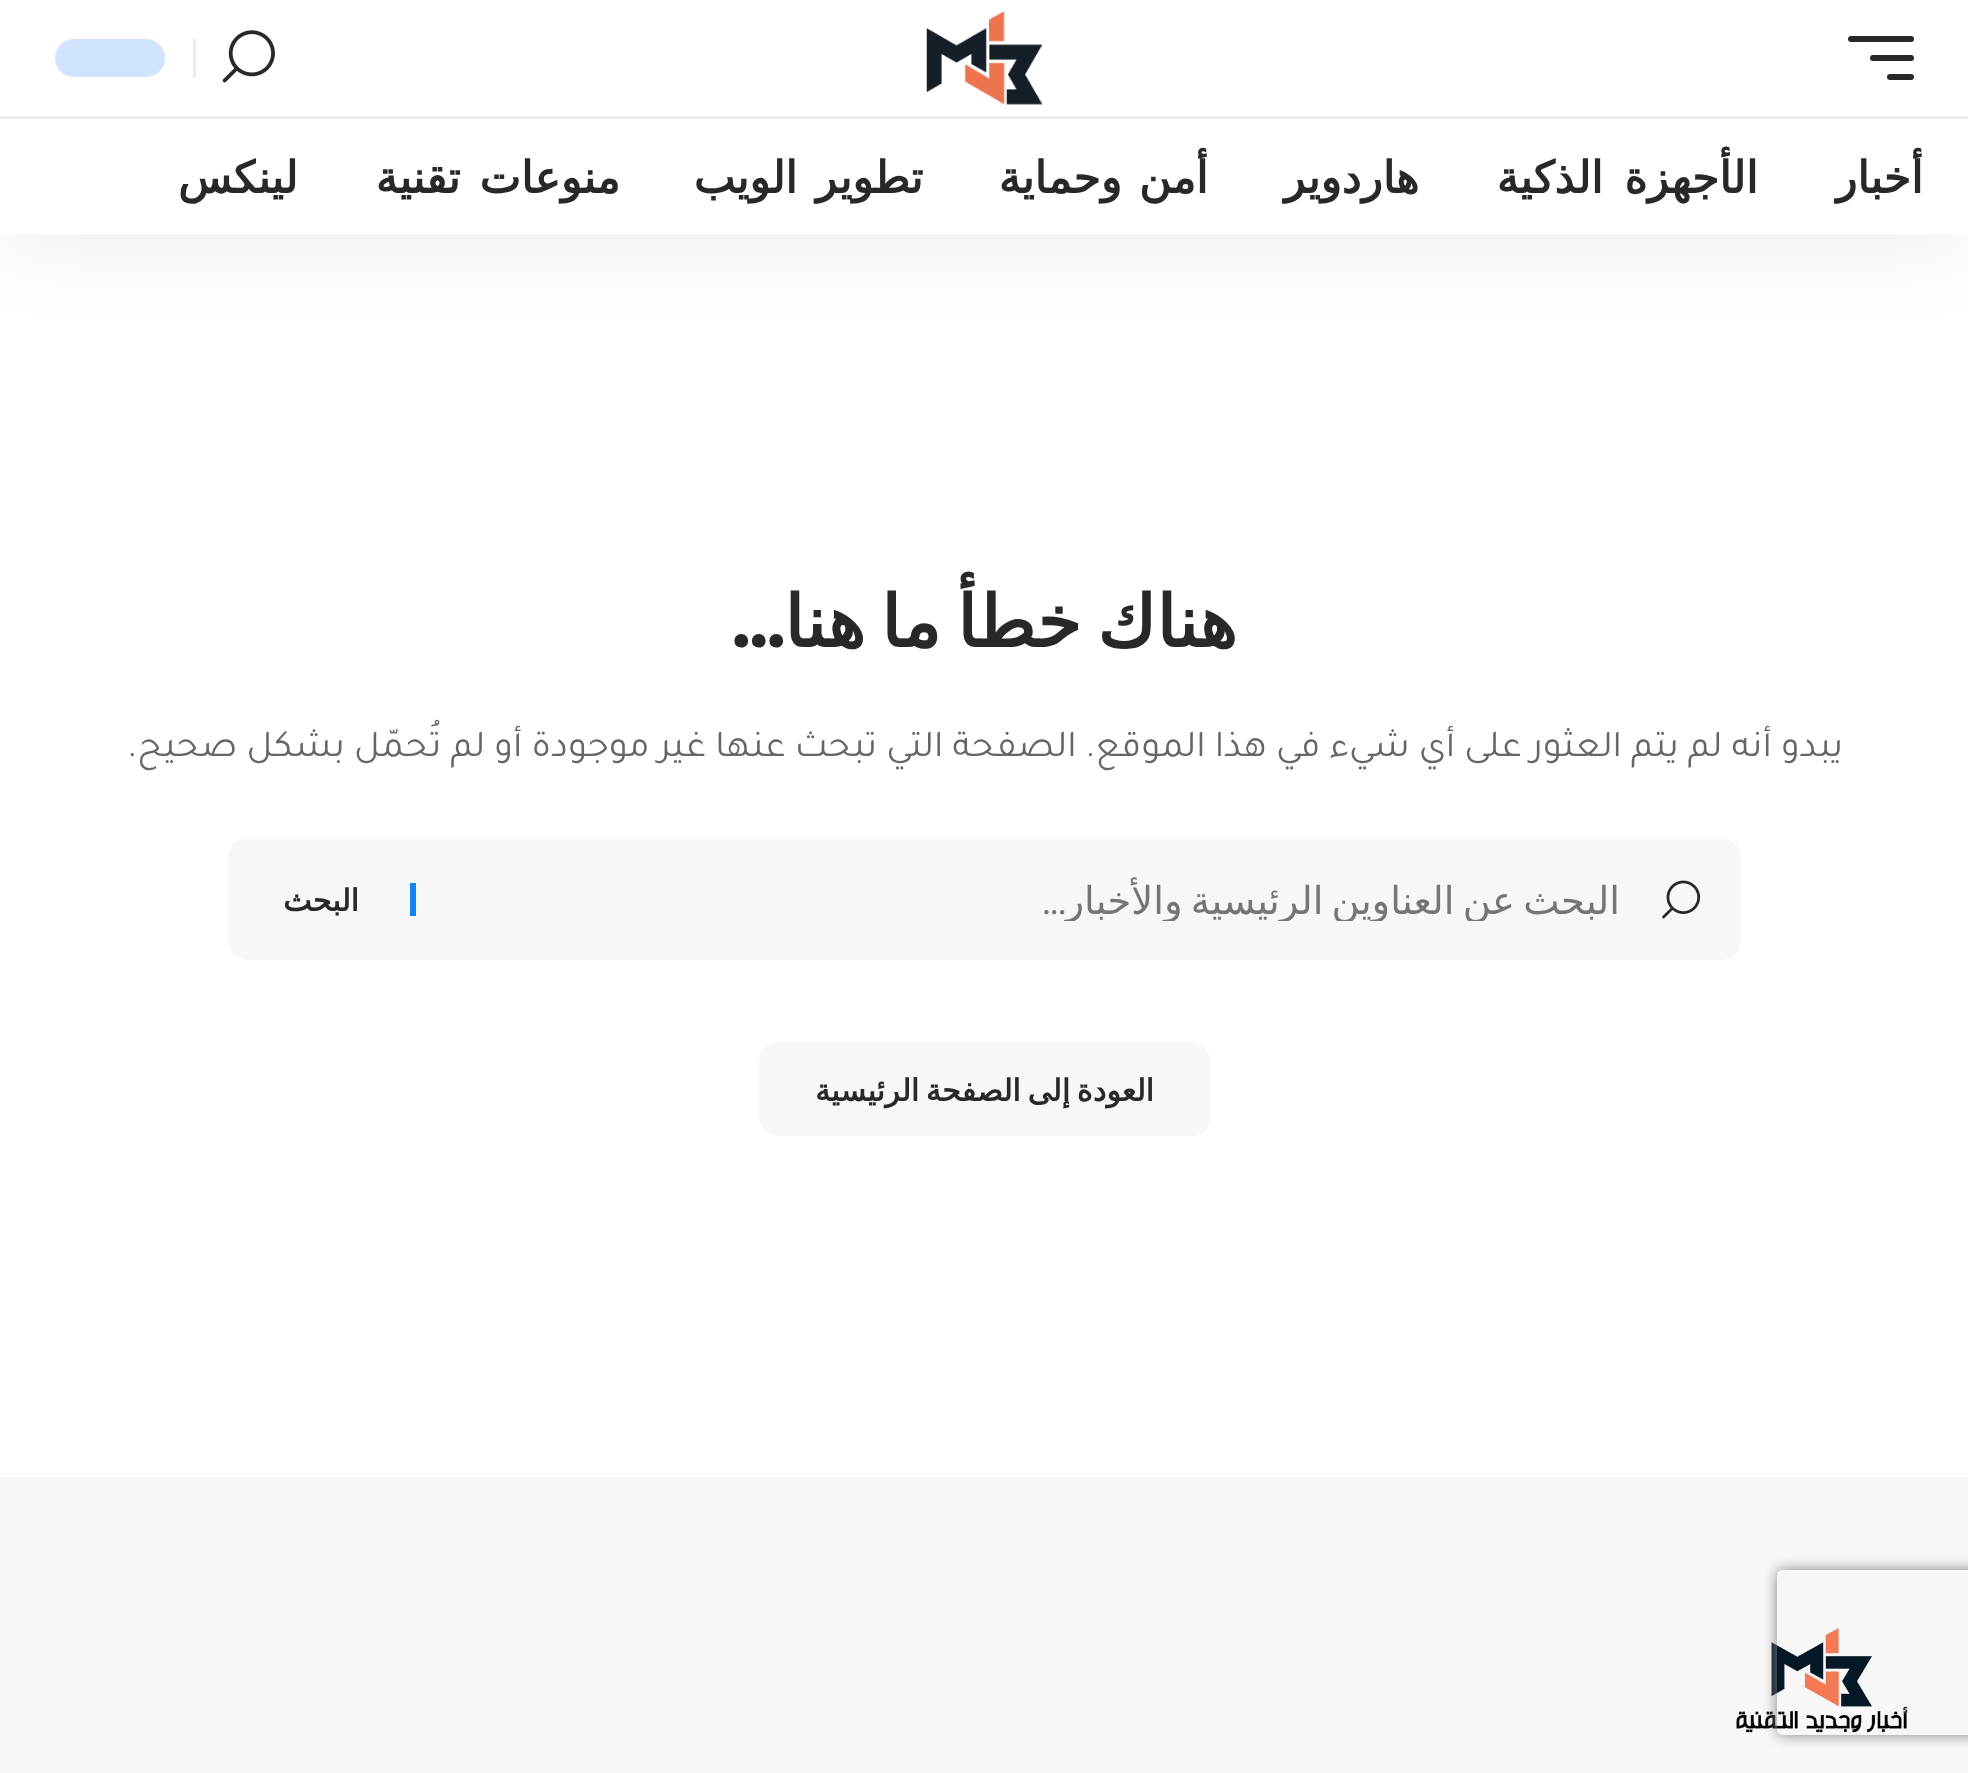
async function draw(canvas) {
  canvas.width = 1968
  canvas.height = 1773
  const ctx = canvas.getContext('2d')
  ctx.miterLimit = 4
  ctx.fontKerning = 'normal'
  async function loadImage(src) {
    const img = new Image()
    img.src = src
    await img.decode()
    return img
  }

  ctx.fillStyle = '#fff'
  ctx.fillRect(0, 0, 1968, 1773)
  ctx.fillStyle = '#00000012'
  ctx.filter = 'blur(41px)'
  ctx.beginPath()
  ctx.rect(0, 11, 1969, 234)
  ctx.fill()
  ctx.filter = 'none'
  ctx.fillStyle = '#fff'
  ctx.fillRect(0, 0, 1968, 234)
  ctx.fillStyle = '#282828'
  ctx.beginPath()
  ctx.roundRect(1848, 36, 66, 6, 3)
  ctx.fill()
  ctx.beginPath()
  ctx.roundRect(1870, 55, 44, 6, 3)
  ctx.fill()
  ctx.beginPath()
  ctx.roundRect(1887, 74, 27, 6, 3)
  ctx.fill()
  ctx.drawImage(await loadImage('image0.png'), 926, 11, 117, 94)
  ctx.drawImage(await loadImage('image1.png'), 222, 30, 53, 53)
  ctx.fillStyle = '#ebebeb'
  ctx.fillRect(193, 39, 3, 38)
  ctx.fillStyle = '#d0e4ff'
  ctx.beginPath()
  ctx.roundRect(55, 39, 110, 38, 19)
  ctx.fill()
  ctx.fillStyle = '#ebebeb'
  ctx.fillRect(0, 116, 1968, 3)
  ctx.letterSpacing = '-0.9px'
  ctx.direction = 'rtl'
  ctx.font = 'bold 44px DejaVu Sans'
  ctx.fillStyle = '#282828'
  ctx.fillText('أخبار', 1923, 193)
  ctx.wordSpacing = '8px'
  ctx.fillText('الأجهزة الذكية', 1758, 193)
  ctx.wordSpacing = '0px'
  ctx.fillText('هاردوير', 1419, 193)
  ctx.wordSpacing = '4px'
  ctx.fillText('أمن وحماية', 1208, 193)
  ctx.wordSpacing = '5px'
  ctx.fillText('تطوير الويب', 923, 193)
  ctx.wordSpacing = '6px'
  ctx.fillText('منوعات تقنية', 620, 193)
  ctx.wordSpacing = '0px'
  ctx.fillText('لينكس', 298, 193)
  ctx.letterSpacing = '0px'
  ctx.wordSpacing = '-7px'
  ctx.font = 'bold 71.5px DejaVu Sans'
  ctx.fillText('هناك خطأ ما هنا', 1237, 647)
  ctx.wordSpacing = '0px'
  ctx.font = 'bold 71.5px Encode Sans Condensed'
  ctx.fillText('...', 785, 647)
  ctx.font = '37.95px Tajawal'
  ctx.fillStyle = '#666'
  ctx.fillText('يبدو أنه لم يتم العثور على أي شيء في هذا الموقع. الصفحة التي تبحث عنها غير موجودة أو لم تُحمّل بشكل صحيح.', 1843, 756)
  ctx.fillStyle = '#f7f7f7'
  ctx.beginPath()
  ctx.roundRect(228, 839, 1513, 121, 19)
  ctx.fill()
  ctx.drawImage(await loadImage('image2.png'), 1662, 880, 39, 39)
  ctx.font = '38.5px Encode Sans Condensed'
  ctx.fillStyle = '#757575'
  ctx.fillText('...', 1066, 914)
  ctx.save()
  ctx.beginPath()
  ctx.rect(468, 875, 1152, 46)
  ctx.clip()
  ctx.wordSpacing = '-4px'
  ctx.font = '38.5px DejaVu Sans'
  ctx.fillText('البحث عن العناوين الرئيسية والأخبار', 1620, 914)
  ctx.restore()
  ctx.fillStyle = '#0a84ff'
  ctx.fillRect(410, 883, 6, 33)
  ctx.font = 'bold 30.25px DejaVu Sans'
  ctx.fillStyle = '#282828'
  ctx.fillText('البحث', 359, 911)
  ctx.fillStyle = '#f7f7f7'
  ctx.beginPath()
  ctx.roundRect(759, 1042, 451, 94, 19)
  ctx.fill()
  ctx.wordSpacing = '-3px'
  ctx.fillStyle = '#282828'
  ctx.fillText('العودة إلى الصفحة الرئيسية', 1154, 1101)
  ctx.fillStyle = '#f7f7f7'
  ctx.fillRect(0, 1477, 1968, 296)
  ctx.drawImage(await loadImage('image3.png'), 1736, 1628, 172, 105)
  ctx.save()
  ctx.beginPath()
  ctx.moveTo(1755, 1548)
  ctx.lineTo(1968, 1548)
  ctx.lineTo(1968, 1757)
  ctx.lineTo(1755, 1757)
  ctx.closePath()
  ctx.moveTo(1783, 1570)
  ctx.lineTo(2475, 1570)
  ctx.bezierCurveTo(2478.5, 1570, 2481, 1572.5, 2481, 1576)
  ctx.lineTo(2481, 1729)
  ctx.bezierCurveTo(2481, 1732.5, 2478.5, 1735, 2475, 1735)
  ctx.lineTo(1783, 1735)
  ctx.bezierCurveTo(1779.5, 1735, 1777, 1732.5, 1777, 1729)
  ctx.lineTo(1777, 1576)
  ctx.bezierCurveTo(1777, 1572.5, 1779.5, 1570, 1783, 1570)
  ctx.closePath()
  ctx.clip('evenodd')
  ctx.fillStyle = '#808080'
  ctx.filter = 'blur(7px)'
  ctx.beginPath()
  ctx.roundRect(1777, 1570, 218, 165, 6)
  ctx.fill()
  ctx.filter = 'none'
  ctx.restore()
}

draw(document.querySelector('canvas'))
